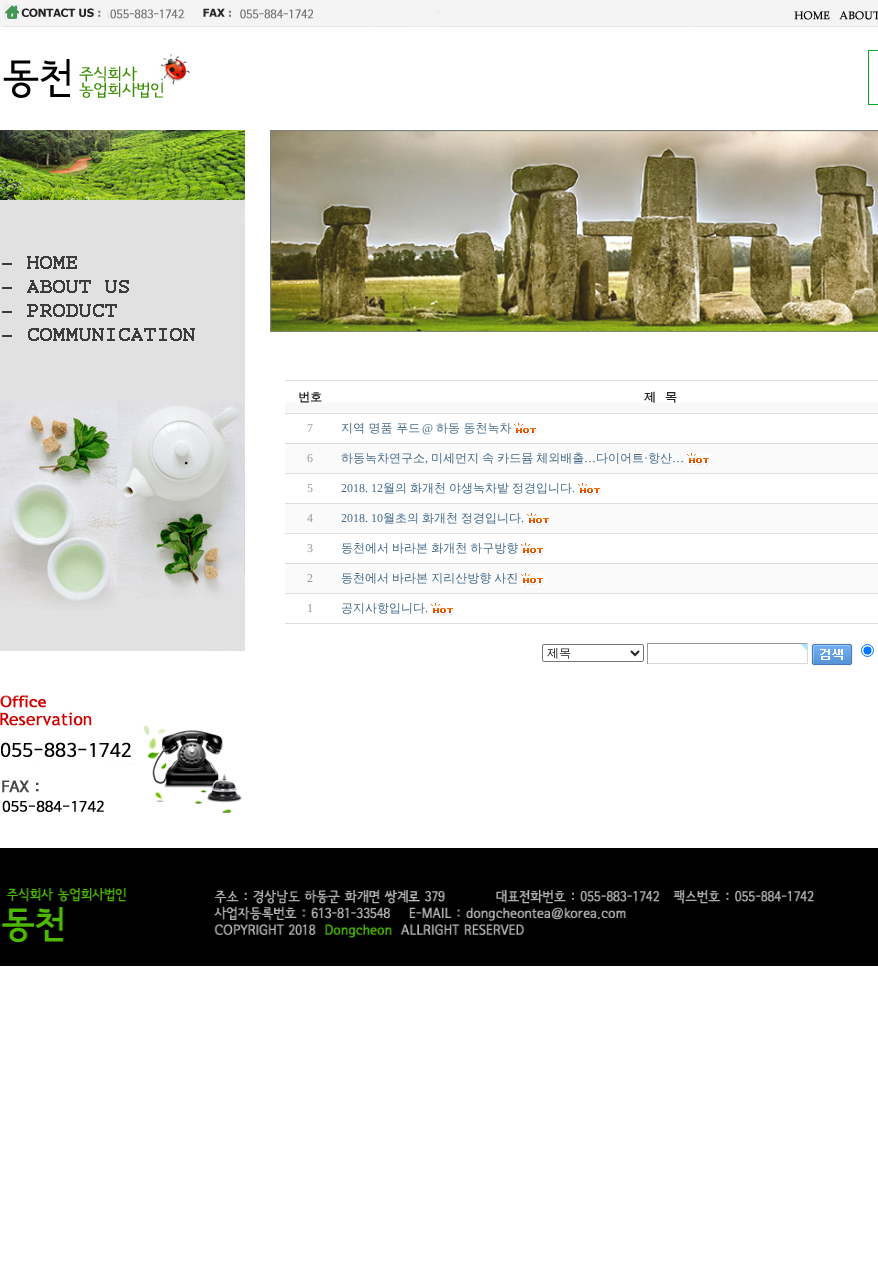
async function draw(canvas) {
  canvas.width = 878
  canvas.height = 1272
  const ctx = canvas.getContext('2d')
  ctx.miterLimit = 4
  ctx.fontKerning = 'normal'
  async function loadImage(src) {
    const img = new Image()
    img.src = src
    await img.decode()
    return img
  }

  ctx.fillStyle = '#fff'
  ctx.fillRect(0, 0, 878, 1272)
  ctx.fillStyle = '#f4f4f4'
  ctx.fillRect(0, 0, 878, 27)
  ctx.drawImage(await loadImage('image0.png'), 3, 0, 686, 27)
  ctx.drawImage(await loadImage('image1.png'), 692, 11, 186, 16)
  ctx.drawImage(await loadImage('image2.png'), 3, 54, 187, 49)
  ctx.drawImage(await loadImage('image3.png'), 868, 50, 10, 55)
  ctx.drawImage(await loadImage('image4.png'), 0, 130, 245, 70)
  ctx.drawImage(await loadImage('image5.png'), 0, 200, 245, 451)
  ctx.drawImage(await loadImage('image6.png'), 0, 691, 242, 122)
  ctx.drawImage(await loadImage('image7.png'), 270, 130, 608, 202)
  ctx.drawImage(await loadImage('image8.png'), 285, 402, 50, 11)
  ctx.fillStyle = '#ddd'
  ctx.fillRect(285, 380, 593, 1)
  ctx.fillRect(285, 413, 593, 1)
  ctx.font = 'bold 12px WenQuanYi Zen Hei'
  ctx.fillStyle = '#222'
  ctx.fillText('번호', 298, 401)
  ctx.drawImage(await loadImage('image9.png'), 335, 402, 543, 11)
  ctx.fillText('제', 644, 401)
  ctx.fillText('목', 665, 401)
  ctx.fillStyle = '#ddd'
  ctx.fillRect(285, 443, 593, 1)
  ctx.font = '12px Liberation Serif'
  ctx.fillStyle = '#999'
  ctx.fillText('7', 307, 432)
  ctx.font = '500 12px WenQuanYi Zen Hei'
  ctx.fillStyle = '#466c8a'
  ctx.fillText('지역 명품 푸드', 341, 432)
  ctx.font = '12px Liberation Serif'
  ctx.fillText('@', 422, 432)
  ctx.font = '500 12px WenQuanYi Zen Hei'
  ctx.fillText('하동 동천녹차', 436, 432)
  ctx.drawImage(await loadImage('image10.png'), 514, 423, 24, 13)
  ctx.fillStyle = '#fafafa'
  ctx.fillRect(285, 444, 593, 29)
  ctx.fillStyle = '#ddd'
  ctx.fillRect(285, 473, 593, 1)
  ctx.font = '12px Liberation Serif'
  ctx.fillStyle = '#999'
  ctx.fillText('6', 307, 462)
  ctx.font = '500 12px WenQuanYi Zen Hei'
  ctx.fillStyle = '#466c8a'
  ctx.fillText('하동녹차연구소', 341, 462)
  ctx.wordSpacing = '-0.5px'
  ctx.fillText('미세먼지 속 카드뮴 체외배출', 431, 462)
  ctx.wordSpacing = '0px'
  ctx.fillText('다이어트', 596, 462)
  ctx.font = '12px Liberation Serif'
  ctx.fillText('·', 644, 462)
  ctx.font = '500 12px WenQuanYi Zen Hei'
  ctx.fillText('항산', 648, 462)
  ctx.drawImage(await loadImage('image10.png'), 687, 453, 24, 13)
  ctx.font = '12px Liberation Serif'
  ctx.fillText(',', 425, 462)
  ctx.fillText('…', 584, 462)
  ctx.fillText('…', 672, 462)
  ctx.fillStyle = '#ddd'
  ctx.fillRect(285, 503, 593, 1)
  ctx.fillStyle = '#999'
  ctx.fillText('5', 307, 492)
  ctx.fillStyle = '#466c8a'
  ctx.fillText('2018. 12', 341, 492)
  ctx.font = '500 12px WenQuanYi Zen Hei'
  ctx.fillText('월의', 383, 492)
  ctx.fillText('화개천', 410, 492)
  ctx.fillText('야생녹차밭', 449, 492)
  ctx.fillText('정경입니다', 512, 492)
  ctx.font = '12px Liberation Serif'
  ctx.fillText('.', 572, 492)
  ctx.drawImage(await loadImage('image10.png'), 578, 483, 24, 13)
  ctx.fillStyle = '#fafafa'
  ctx.fillRect(285, 504, 593, 29)
  ctx.fillStyle = '#ddd'
  ctx.fillRect(285, 533, 593, 1)
  ctx.fillStyle = '#999'
  ctx.fillText('4', 307, 522)
  ctx.fillStyle = '#466c8a'
  ctx.fillText('2018. 10', 341, 522)
  ctx.font = '500 12px WenQuanYi Zen Hei'
  ctx.fillText('월초의', 383, 522)
  ctx.fillText('화개천', 422, 522)
  ctx.fillText('정경입니다', 461, 522)
  ctx.font = '12px Liberation Serif'
  ctx.fillText('.', 521, 522)
  ctx.drawImage(await loadImage('image10.png'), 527, 513, 24, 13)
  ctx.fillStyle = '#ddd'
  ctx.fillRect(285, 563, 593, 1)
  ctx.fillStyle = '#999'
  ctx.fillText('3', 307, 552)
  ctx.wordSpacing = '-0.5px'
  ctx.font = '500 12px WenQuanYi Zen Hei'
  ctx.fillStyle = '#466c8a'
  ctx.fillText('동천에서 바라본 화개천 하구방향', 341, 552)
  ctx.drawImage(await loadImage('image10.png'), 521, 543, 24, 13)
  ctx.fillStyle = '#fafafa'
  ctx.fillRect(285, 564, 593, 29)
  ctx.fillStyle = '#ddd'
  ctx.fillRect(285, 593, 593, 1)
  ctx.wordSpacing = '0px'
  ctx.font = '12px Liberation Serif'
  ctx.fillStyle = '#999'
  ctx.fillText('2', 307, 582)
  ctx.wordSpacing = '-0.5px'
  ctx.font = '500 12px WenQuanYi Zen Hei'
  ctx.fillStyle = '#466c8a'
  ctx.fillText('동천에서 바라본 지리산방향 사진', 341, 582)
  ctx.drawImage(await loadImage('image10.png'), 521, 573, 24, 13)
  ctx.fillStyle = '#ddd'
  ctx.fillRect(285, 623, 593, 1)
  ctx.wordSpacing = '0px'
  ctx.font = '12px Liberation Serif'
  ctx.fillStyle = '#999'
  ctx.fillText('1', 307, 612)
  ctx.font = '500 12px WenQuanYi Zen Hei'
  ctx.fillStyle = '#466c8a'
  ctx.fillText('공지사항입니다', 341, 612)
  ctx.font = '12px Liberation Serif'
  ctx.fillText('.', 425, 612)
  ctx.drawImage(await loadImage('image10.png'), 431, 603, 24, 13)
  ctx.beginPath()
  ctx.roundRect(542.5, 644.5, 101, 17, 1.5)
  ctx.strokeStyle = '#767676'
  ctx.stroke()
  ctx.beginPath()
  ctx.moveTo(631, 651)
  ctx.lineTo(635, 655)
  ctx.lineTo(639, 651)
  ctx.strokeStyle = '#222'
  ctx.lineWidth = 2
  ctx.stroke()
  ctx.font = '500 12px WenQuanYi Zen Hei'
  ctx.fillStyle = '#222'
  ctx.fillText('제목', 547, 657)
  ctx.drawImage(await loadImage('image11.png'), 801, 644, 6, 6)
  ctx.fillStyle = '#9a9a9a'
  ctx.fillRect(647, 643, 161, 1)
  ctx.fillStyle = '#d8d8d8'
  ctx.fillRect(807, 643, 1, 21)
  ctx.fillRect(647, 663, 161, 1)
  ctx.fillStyle = '#9a9a9a'
  ctx.fillRect(647, 643, 1, 21)
  ctx.drawImage(await loadImage('image12.png'), 811, 643, 42, 23)
  ctx.beginPath()
  ctx.arc(867.5, 650.5, 6, 0, 2 * Math.PI)
  ctx.strokeStyle = '#0075ff'
  ctx.lineWidth = 1
  ctx.stroke()
  ctx.fillStyle = '#0075ff'
  ctx.beginPath()
  ctx.arc(867.5, 650.5, 4, 0, 2 * Math.PI)
  ctx.fill()
  ctx.fillStyle = '#000'
  ctx.fillRect(0, 848, 878, 118)
  ctx.drawImage(await loadImage('image13.png'), 1, 888, 813, 55)
}

draw(document.querySelector('canvas'))
